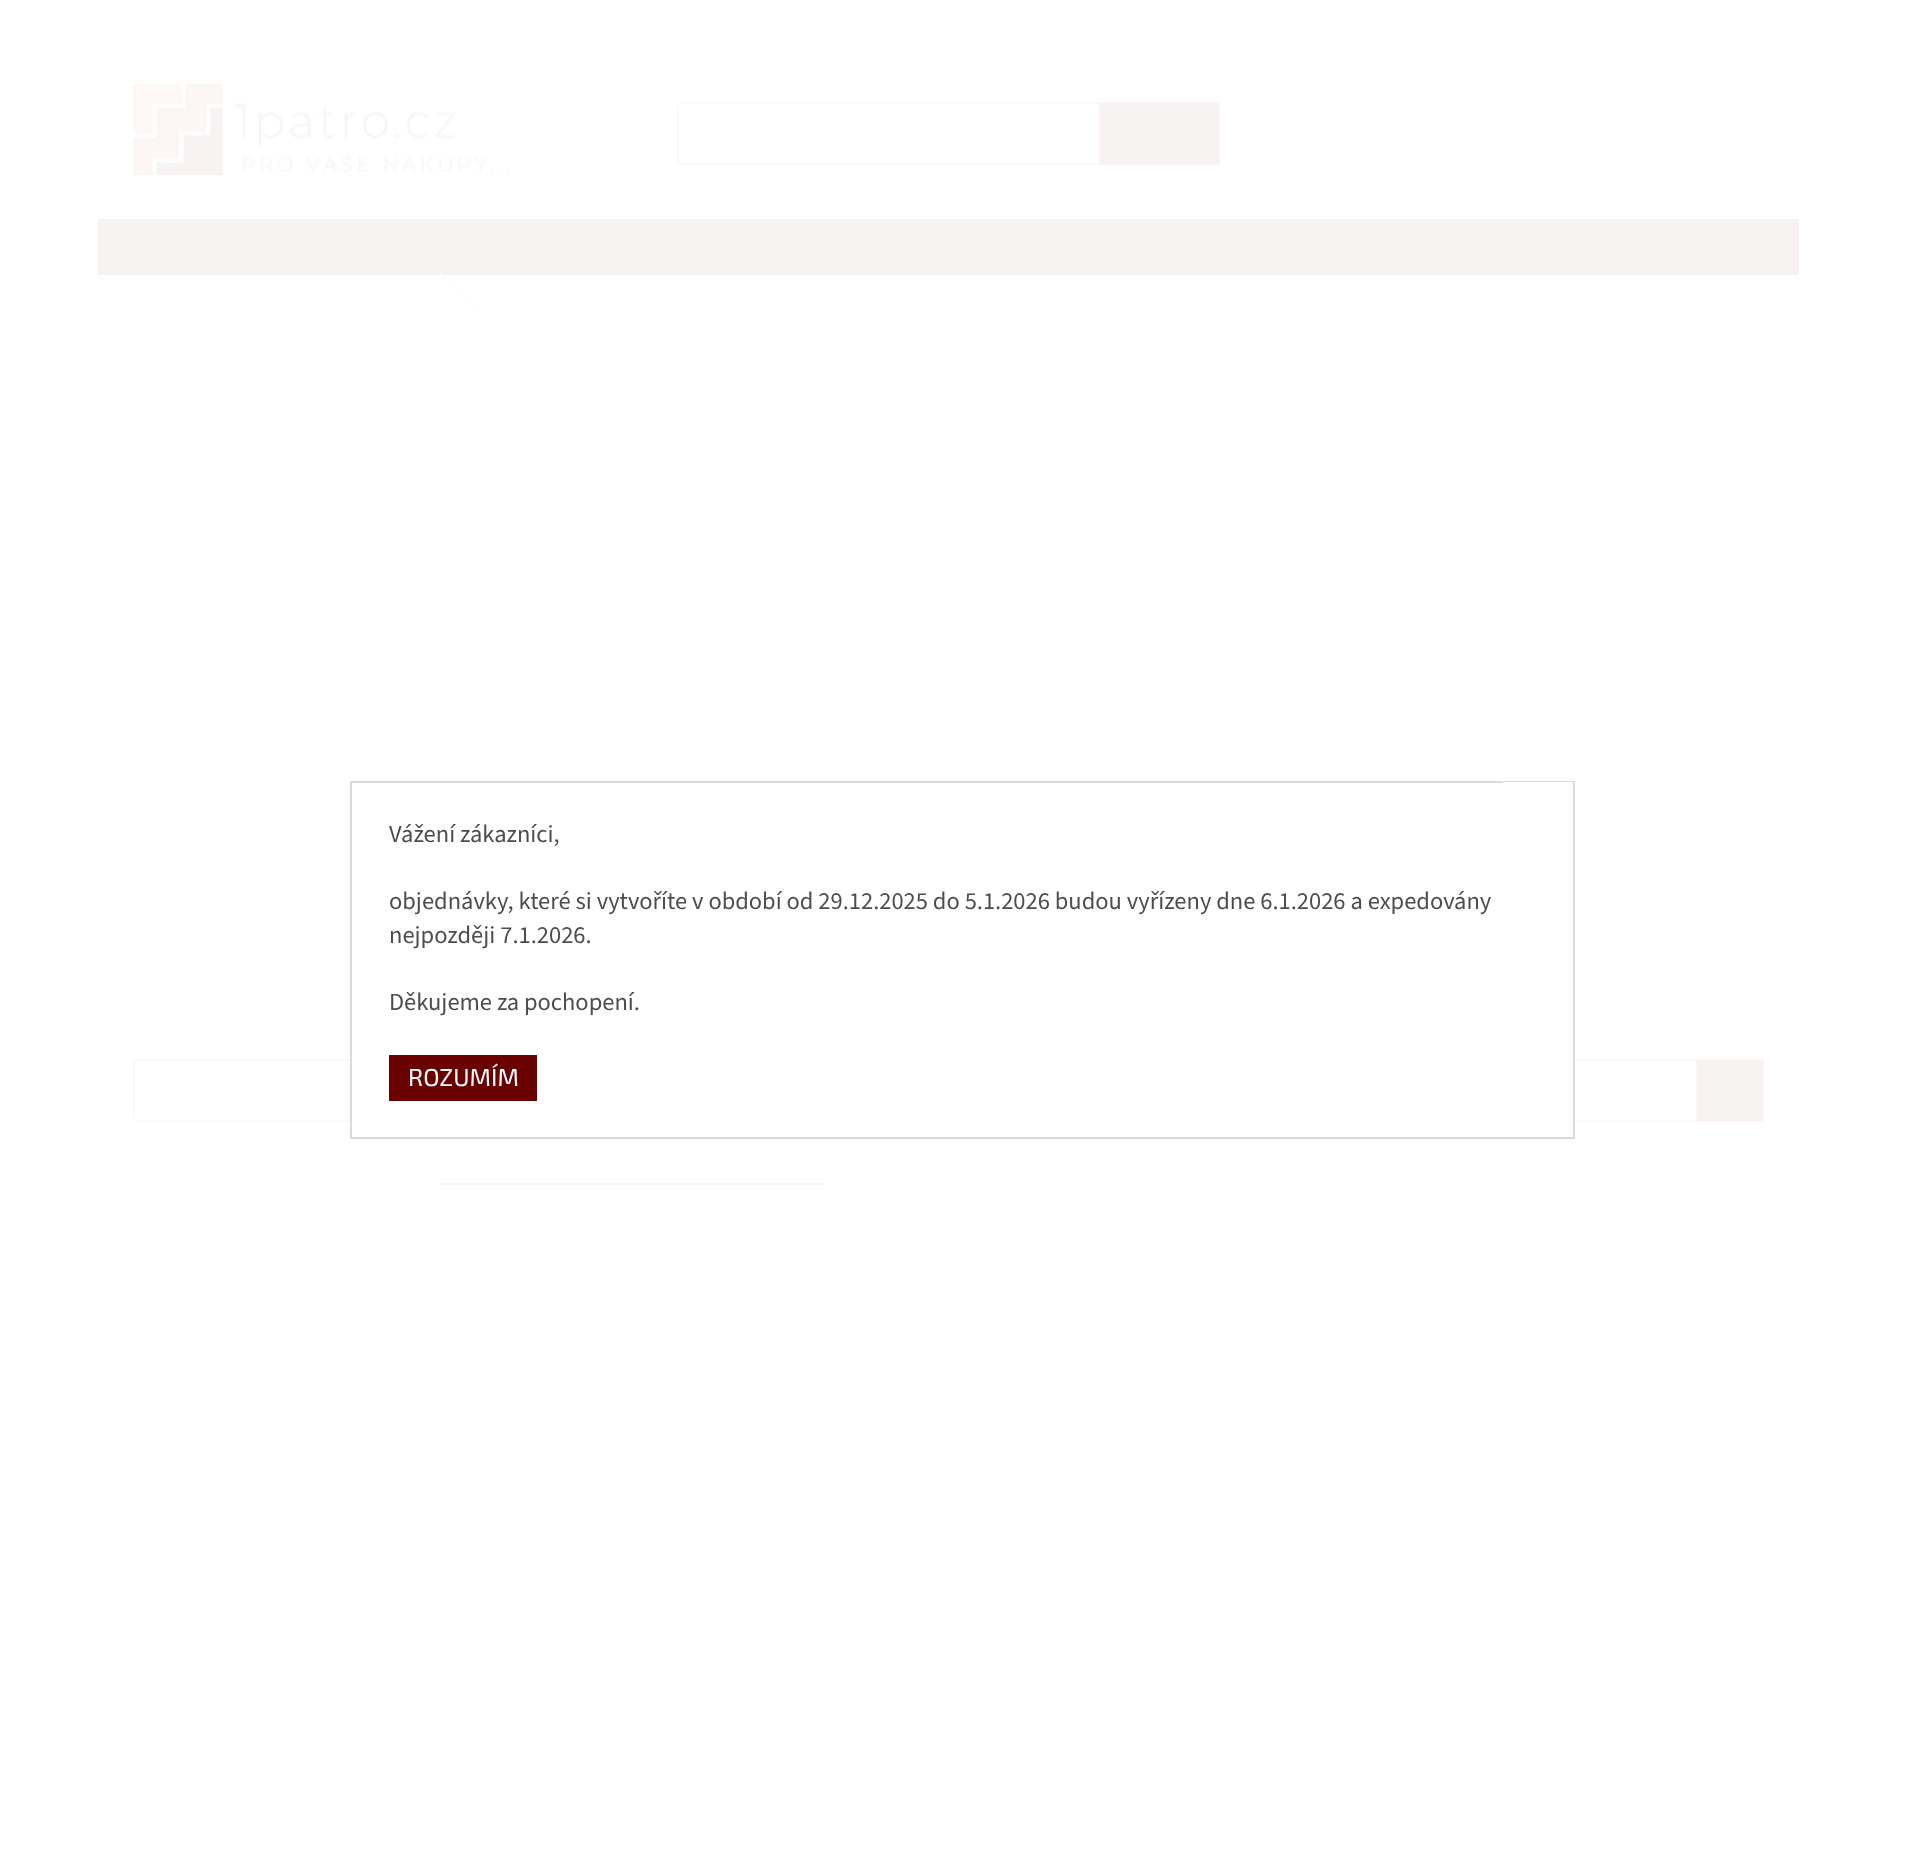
async function draw(canvas) {
  canvas.width = 1923
  canvas.height = 1861
  const ctx = canvas.getContext('2d')
  ctx.miterLimit = 4
  ctx.fontKerning = 'normal'
  async function loadImage(src) {
    const img = new Image()
    img.src = src
    await img.decode()
    return img
  }

  ctx.fillStyle = '#fff'
  ctx.fillRect(0, 0, 1923, 1861)
  ctx.drawImage(await loadImage('image0.png'), 133, 84, 378, 91)
  ctx.beginPath()
  ctx.roundRect(678, 103, 541, 61, 4)
  ctx.strokeStyle = '#fafafa'
  ctx.lineWidth = 2
  ctx.stroke()
  ctx.fillStyle = '#f7f2f2'
  ctx.beginPath()
  ctx.rect(1100, 103, 119, 61)
  ctx.fill()
  ctx.strokeStyle = '#fff2f2'
  ctx.stroke()
  ctx.fillRect(98, 219, 1701, 56)
  ctx.fillStyle = '#fdfdfd'
  ctx.beginPath()
  ctx.moveTo(439.5, 274.5)
  ctx.lineTo(440.5, 273)
  ctx.lineTo(477, 309.5)
  ctx.lineTo(476, 311)
  ctx.closePath()
  ctx.fill()
  ctx.beginPath()
  ctx.roundRect(134, 1060, 1629, 61, 4)
  ctx.strokeStyle = '#fafafa'
  ctx.stroke()
  ctx.fillStyle = '#f7f2f2'
  ctx.beginPath()
  ctx.rect(1697, 1060, 66, 61)
  ctx.fill()
  ctx.strokeStyle = '#fff2f2'
  ctx.stroke()
  ctx.fillRect(441, 1183, 382, 2)
  ctx.fillStyle = '#fff'
  ctx.fillRect(352, 1059, 1221, 63)
  ctx.strokeStyle = '#dadada'
  ctx.strokeRect(351, 782, 1223, 356)
  ctx.fillRect(1503, 782, 70, 1)
  ctx.font = '24.5px "Source Sans 3"'
  ctx.fillStyle = '#4d4d4d'
  ctx.fillText('Vážení zákazníci,', 389, 842)
  ctx.fillText('objednávky, které si vytvoříte v období od 29.12.2025 do 5.1.2026 budou vyřízeny dne 6.1.2026 a expedovány', 389, 909)
  ctx.fillText('nejpozději 7.1.2026.', 389, 943)
  ctx.fillText('Děkujeme za pochopení.', 389, 1010)
  ctx.fillStyle = '#680100'
  ctx.fillRect(389, 1055, 148, 46)
  ctx.font = '24.5px "Exo 2"'
  ctx.fillStyle = '#fff'
  ctx.fillText('ROZUMÍM', 408, 1086)
}

draw(document.querySelector('canvas'))
